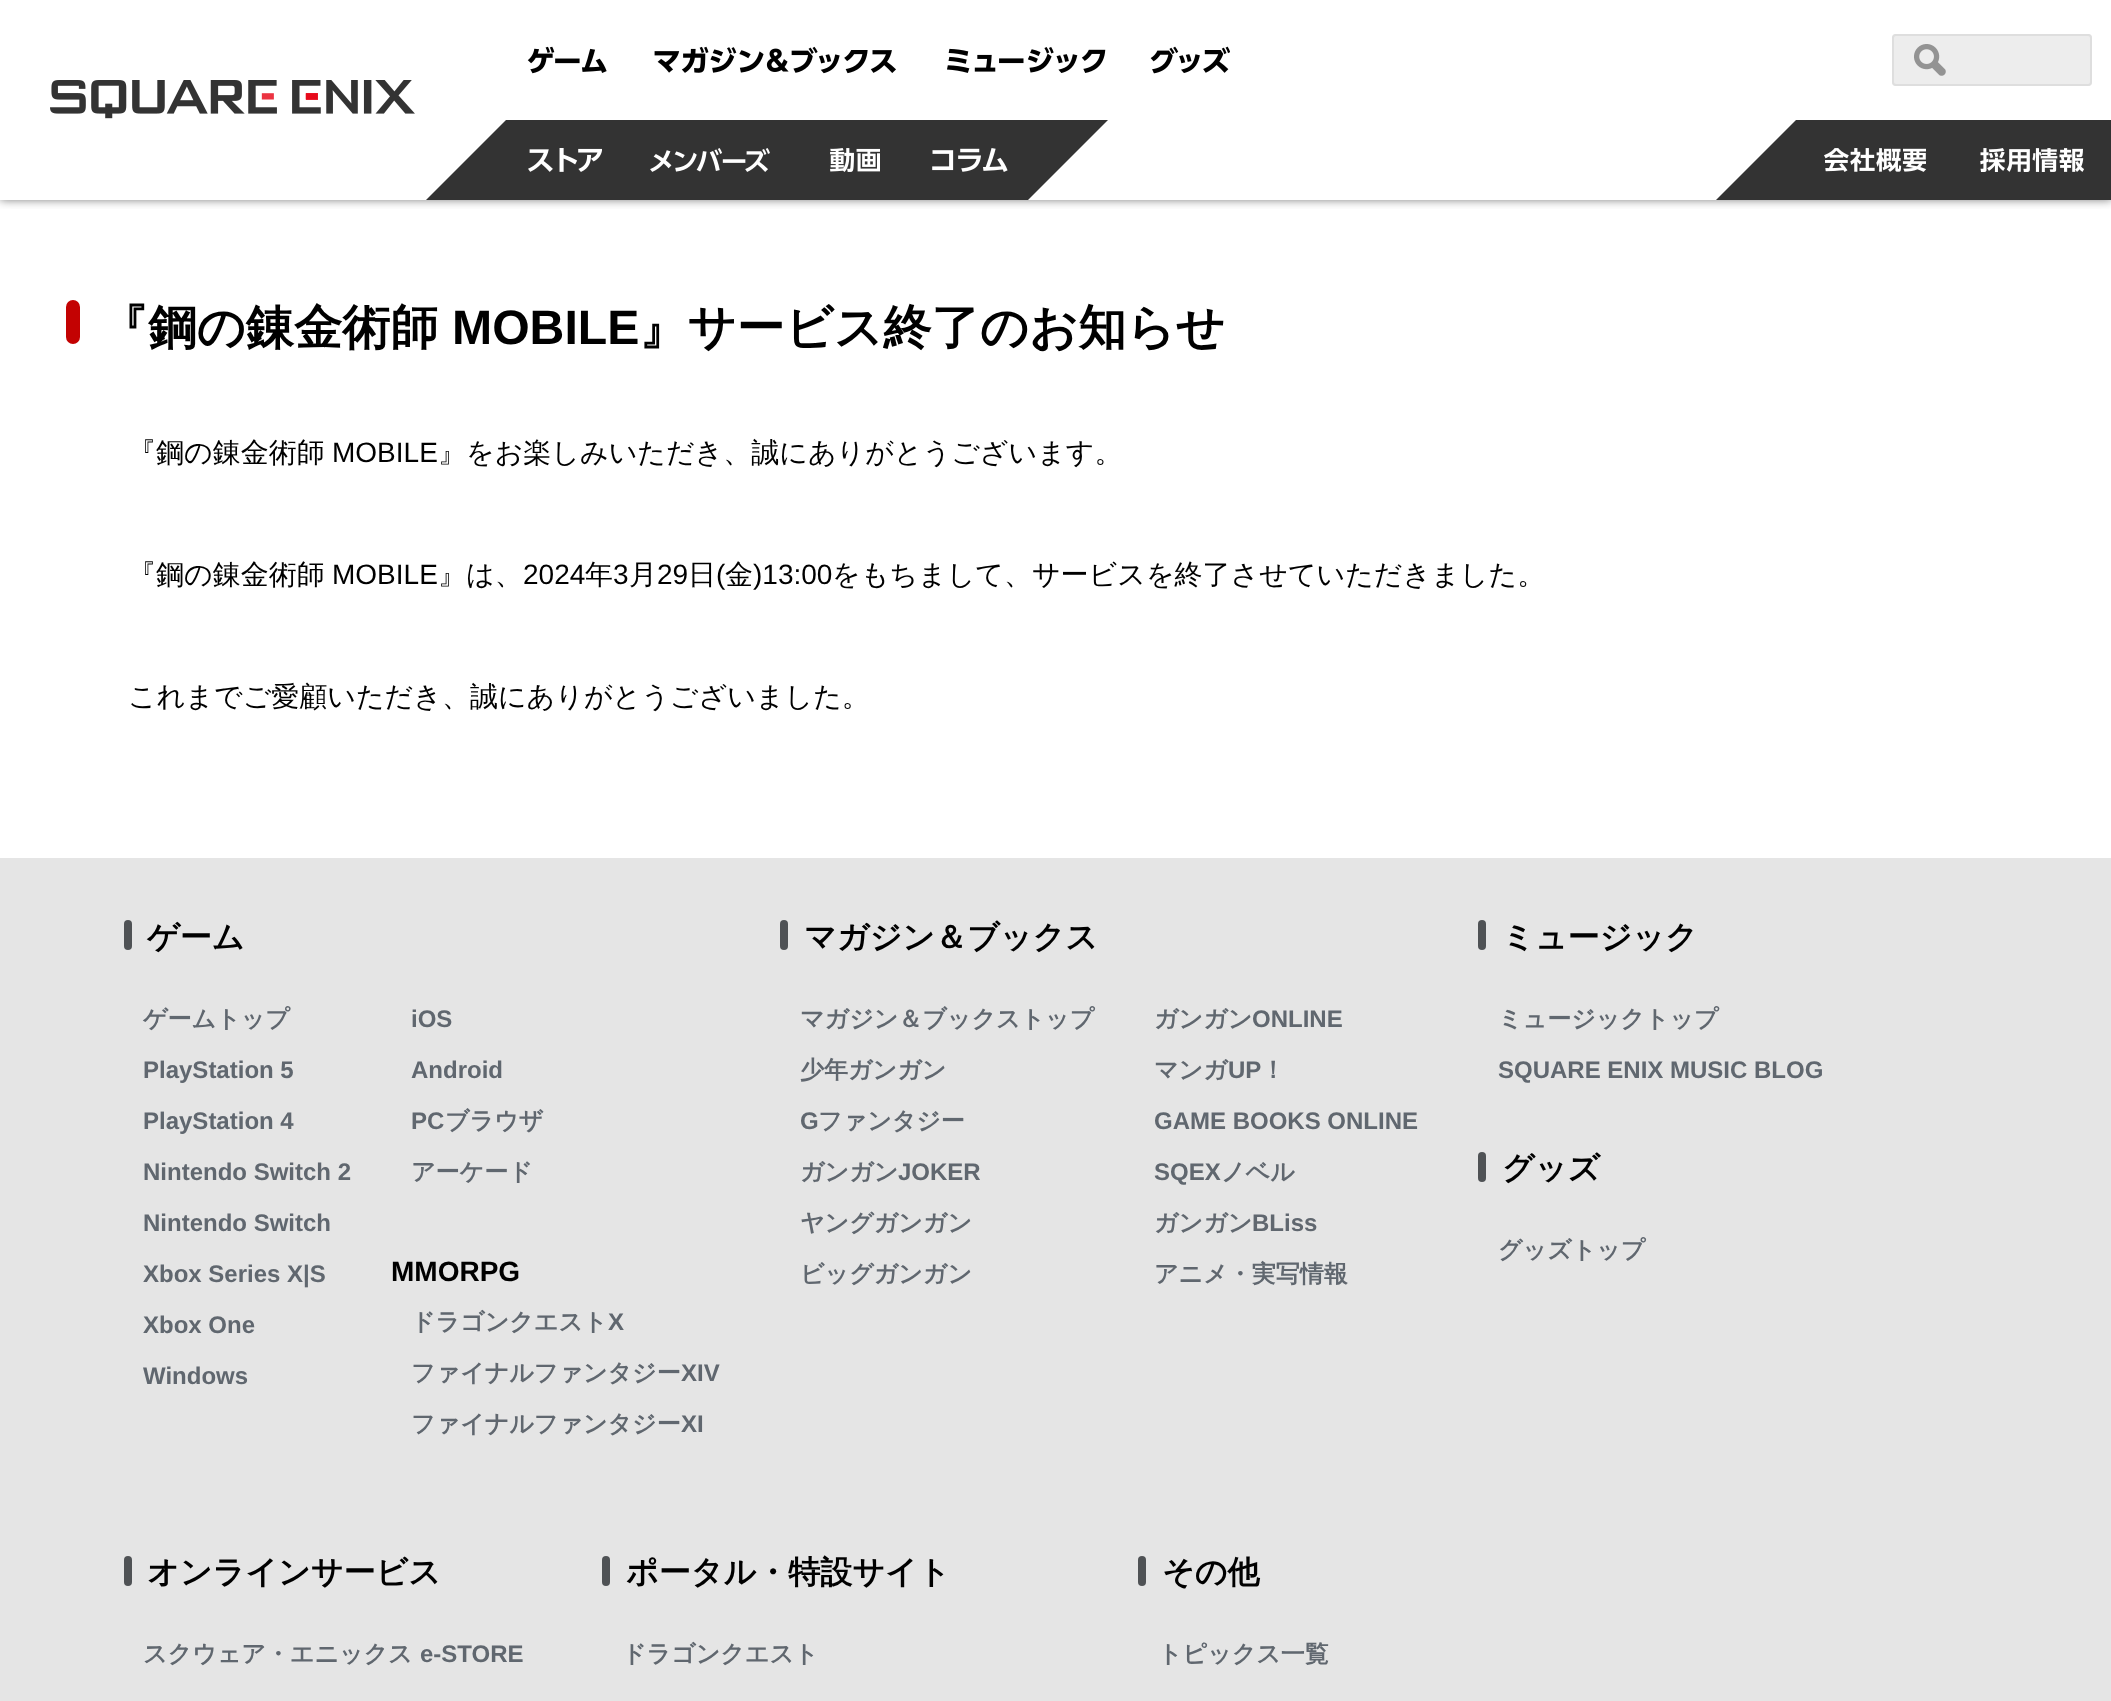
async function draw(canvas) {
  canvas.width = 2111
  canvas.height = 1701
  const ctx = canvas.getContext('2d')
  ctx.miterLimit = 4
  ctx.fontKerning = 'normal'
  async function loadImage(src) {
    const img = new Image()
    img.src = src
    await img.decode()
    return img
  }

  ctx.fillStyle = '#fff'
  ctx.fillRect(0, 0, 2111, 1701)
  ctx.save()
  ctx.beginPath()
  ctx.rect(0, 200, 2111, 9)
  ctx.clip()
  ctx.fillStyle = '#00000080'
  ctx.filter = 'blur(5px)'
  ctx.beginPath()
  ctx.rect(0, 0, 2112, 200)
  ctx.fill()
  ctx.filter = 'none'
  ctx.restore()
  ctx.drawImage(await loadImage('image0.png'), 50, 80, 365, 39)
  ctx.drawImage(await loadImage('image1.png'), 527, 46, 80, 28)
  ctx.drawImage(await loadImage('image2.png'), 654, 46, 242, 28)
  ctx.drawImage(await loadImage('image3.png'), 947, 47, 159, 26)
  ctx.drawImage(await loadImage('image4.png'), 1150, 46, 80, 28)
  ctx.fillStyle = '#ededed'
  ctx.beginPath()
  ctx.roundRect(1892, 34, 200, 52, 4)
  ctx.fill()
  ctx.drawImage(await loadImage('image5.png'), 1914, 44, 32, 32)
  ctx.beginPath()
  ctx.roundRect(1893, 35, 198, 50, 3)
  ctx.strokeStyle = '#dedede'
  ctx.lineWidth = 2
  ctx.stroke()
  ctx.fillStyle = '#333'
  ctx.fillRect(506, 120, 522, 80)
  ctx.beginPath()
  ctx.moveTo(506, 200)
  ctx.lineTo(426, 200)
  ctx.lineTo(506, 120)
  ctx.closePath()
  ctx.fill()
  ctx.drawImage(await loadImage('image6.png'), 528, 148, 74, 24)
  ctx.drawImage(await loadImage('image7.png'), 650, 148, 120, 24)
  ctx.drawImage(await loadImage('image8.png'), 830, 148, 50, 24)
  ctx.drawImage(await loadImage('image9.png'), 932, 148, 76, 24)
  ctx.beginPath()
  ctx.moveTo(1028, 120)
  ctx.lineTo(1108, 120)
  ctx.lineTo(1028, 200)
  ctx.closePath()
  ctx.fill()
  ctx.fillRect(1796, 120, 315, 80)
  ctx.beginPath()
  ctx.moveTo(1796, 200)
  ctx.lineTo(1716, 200)
  ctx.lineTo(1796, 120)
  ctx.closePath()
  ctx.fill()
  ctx.drawImage(await loadImage('image10.png'), 1824, 148, 102, 24)
  ctx.drawImage(await loadImage('image11.png'), 1980, 148, 104, 24)
  ctx.fillStyle = '#c30202'
  ctx.beginPath()
  ctx.roundRect(66, 300, 14, 44, 7)
  ctx.fill()
  ctx.font = 'bold 48.2px WenQuanYi Zen Hei'
  ctx.fillStyle = '#000'
  ctx.fillText('『鋼の錬金術師', 100, 344)
  ctx.font = 'bold 48.2px Liberation Sans'
  ctx.fillText('MOBILE', 452, 344)
  ctx.font = 'bold 48.2px WenQuanYi Zen Hei'
  ctx.fillText('』サービス終了のお知らせ', 639, 344)
  ctx.font = '500 28px WenQuanYi Zen Hei'
  ctx.fillText('『鋼の錬金術師', 128, 462)
  ctx.font = '28px Liberation Sans'
  ctx.fillText('MOBILE', 332, 462)
  ctx.font = '500 28px WenQuanYi Zen Hei'
  ctx.fillText('』をお楽しみいただき、誠にありがとうございます。', 438, 462)
  ctx.fillText('『鋼の錬金術師', 128, 584)
  ctx.font = '28px Liberation Sans'
  ctx.fillText('MOBILE', 332, 584)
  ctx.font = '500 28px WenQuanYi Zen Hei'
  ctx.fillText('』は、', 438, 584)
  ctx.font = '28px Liberation Sans'
  ctx.fillText('2024', 523, 584)
  ctx.font = '500 28px WenQuanYi Zen Hei'
  ctx.fillText('年', 585, 584)
  ctx.font = '28px Liberation Sans'
  ctx.fillText('3', 613, 584)
  ctx.font = '500 28px WenQuanYi Zen Hei'
  ctx.fillText('月', 629, 584)
  ctx.font = '28px Liberation Sans'
  ctx.fillText('29', 657, 584)
  ctx.font = '500 28px WenQuanYi Zen Hei'
  ctx.fillText('日', 688, 584)
  ctx.font = '28px Liberation Sans'
  ctx.fillText('(', 716, 584)
  ctx.font = '500 28px WenQuanYi Zen Hei'
  ctx.fillText('金', 725, 584)
  ctx.font = '28px Liberation Sans'
  ctx.fillText(')13:00', 753, 584)
  ctx.font = '500 28px WenQuanYi Zen Hei'
  ctx.fillText('をもちまして、サービスを終了させていただきました。', 832, 584)
  ctx.fillText('これまでご愛顧いただき、誠にありがとうございました。', 128, 706)
  ctx.fillStyle = '#e5e5e5'
  ctx.fillRect(0, 858, 2111, 843)
  ctx.fillStyle = '#4f5255'
  ctx.beginPath()
  ctx.roundRect(124, 920, 8, 30, 4)
  ctx.fill()
  ctx.font = 'bold 32px WenQuanYi Zen Hei'
  ctx.fillStyle = '#000'
  ctx.fillText('ゲーム', 147, 948)
  ctx.font = 'bold 24px WenQuanYi Zen Hei'
  ctx.fillStyle = '#60676f'
  ctx.fillText('ゲームトップ', 143, 1027)
  ctx.font = 'bold 24px Liberation Sans'
  ctx.fillText('PlayStation 5', 143, 1078)
  ctx.fillText('PlayStation 4', 143, 1129)
  ctx.fillText('Nintendo Switch 2', 143, 1180)
  ctx.fillText('Nintendo Switch', 143, 1231)
  ctx.fillText('Xbox Series X|S', 143, 1282)
  ctx.fillText('Xbox One', 143, 1333)
  ctx.fillText('Windows', 143, 1384)
  ctx.fillText('iOS', 411, 1027)
  ctx.fillText('Android', 411, 1078)
  ctx.fillText('PC', 411, 1129)
  ctx.font = 'bold 24px WenQuanYi Zen Hei'
  ctx.fillText('ブラウザ', 445, 1129)
  ctx.fillText('アーケード', 411, 1180)
  ctx.font = 'bold 28px Liberation Sans'
  ctx.fillStyle = '#000'
  ctx.fillText('MMORPG', 391, 1281)
  ctx.font = 'bold 24px WenQuanYi Zen Hei'
  ctx.fillStyle = '#60676f'
  ctx.fillText('ドラゴンクエスト', 411, 1330)
  ctx.font = 'bold 24px Liberation Sans'
  ctx.fillText('X', 608, 1330)
  ctx.font = 'bold 24px WenQuanYi Zen Hei'
  ctx.fillText('ファイナルファンタジー', 411, 1381)
  ctx.font = 'bold 24px Liberation Sans'
  ctx.fillText('XIV', 681, 1381)
  ctx.font = 'bold 24px WenQuanYi Zen Hei'
  ctx.fillText('ファイナルファンタジー', 411, 1432)
  ctx.font = 'bold 24px Liberation Sans'
  ctx.fillText('XI', 681, 1432)
  ctx.fillStyle = '#4f5255'
  ctx.beginPath()
  ctx.roundRect(780, 920, 8, 30, 4)
  ctx.fill()
  ctx.font = 'bold 32px WenQuanYi Zen Hei'
  ctx.fillStyle = '#000'
  ctx.fillText('マガジン＆ブックス', 804, 948)
  ctx.font = 'bold 24px WenQuanYi Zen Hei'
  ctx.fillStyle = '#60676f'
  ctx.fillText('マガジン＆ブックストップ', 800, 1027)
  ctx.fillText('少年ガンガン', 800, 1078)
  ctx.font = 'bold 24px Liberation Sans'
  ctx.fillText('G', 800, 1129)
  ctx.font = 'bold 24px WenQuanYi Zen Hei'
  ctx.fillText('ファンタジー', 818, 1129)
  ctx.fillText('ガンガン', 800, 1180)
  ctx.font = 'bold 24px Liberation Sans'
  ctx.fillText('JOKER', 898, 1180)
  ctx.font = 'bold 24px WenQuanYi Zen Hei'
  ctx.fillText('ヤングガンガン', 800, 1231)
  ctx.fillText('ビッグガンガン', 800, 1282)
  ctx.fillText('ガンガン', 1154, 1027)
  ctx.font = 'bold 24px Liberation Sans'
  ctx.fillText('ONLINE', 1252, 1027)
  ctx.font = 'bold 24px WenQuanYi Zen Hei'
  ctx.fillText('マンガ', 1154, 1078)
  ctx.font = 'bold 24px Liberation Sans'
  ctx.fillText('UP', 1228, 1078)
  ctx.font = 'bold 24px WenQuanYi Zen Hei'
  ctx.fillText('！', 1261, 1078)
  ctx.font = 'bold 24px Liberation Sans'
  ctx.fillText('GAME BOOKS ONLINE', 1154, 1129)
  ctx.fillText('SQEX', 1154, 1180)
  ctx.font = 'bold 24px WenQuanYi Zen Hei'
  ctx.fillText('ノベル', 1221, 1180)
  ctx.fillText('ガンガン', 1154, 1231)
  ctx.font = 'bold 24px Liberation Sans'
  ctx.fillText('BLiss', 1252, 1231)
  ctx.font = 'bold 24px WenQuanYi Zen Hei'
  ctx.fillText('アニメ・実写情報', 1154, 1282)
  ctx.fillStyle = '#4f5255'
  ctx.beginPath()
  ctx.roundRect(1478, 920, 8, 30, 4)
  ctx.fill()
  ctx.font = 'bold 32px WenQuanYi Zen Hei'
  ctx.fillStyle = '#000'
  ctx.fillText('ミュージック', 1502, 948)
  ctx.font = 'bold 24px WenQuanYi Zen Hei'
  ctx.fillStyle = '#60676f'
  ctx.fillText('ミュージックトップ', 1498, 1027)
  ctx.font = 'bold 24px Liberation Sans'
  ctx.fillText('SQUARE ENIX MUSIC BLOG', 1498, 1078)
  ctx.fillStyle = '#4f5255'
  ctx.beginPath()
  ctx.roundRect(1478, 1152, 8, 30, 4)
  ctx.fill()
  ctx.font = 'bold 32px WenQuanYi Zen Hei'
  ctx.fillStyle = '#000'
  ctx.fillText('グッズ', 1502, 1179)
  ctx.font = 'bold 24px WenQuanYi Zen Hei'
  ctx.fillStyle = '#60676f'
  ctx.fillText('グッズトップ', 1498, 1258)
  ctx.fillStyle = '#4f5255'
  ctx.beginPath()
  ctx.roundRect(124, 1556, 8, 30, 4)
  ctx.fill()
  ctx.font = 'bold 32px WenQuanYi Zen Hei'
  ctx.fillStyle = '#000'
  ctx.fillText('オンラインサービス', 147, 1583)
  ctx.font = 'bold 24px WenQuanYi Zen Hei'
  ctx.fillStyle = '#60676f'
  ctx.fillText('スクウェア・エニックス', 143, 1662)
  ctx.font = 'bold 24px Liberation Sans'
  ctx.fillText('e-STORE', 420, 1662)
  ctx.fillStyle = '#4f5255'
  ctx.beginPath()
  ctx.roundRect(602, 1556, 8, 30, 4)
  ctx.fill()
  ctx.font = 'bold 32px WenQuanYi Zen Hei'
  ctx.fillStyle = '#000'
  ctx.fillText('ポータル・特設サイト', 626, 1583)
  ctx.font = 'bold 24px WenQuanYi Zen Hei'
  ctx.fillStyle = '#60676f'
  ctx.fillText('ドラゴンクエスト', 622, 1662)
  ctx.fillStyle = '#4f5255'
  ctx.beginPath()
  ctx.roundRect(1138, 1556, 8, 30, 4)
  ctx.fill()
  ctx.font = 'bold 32px WenQuanYi Zen Hei'
  ctx.fillStyle = '#000'
  ctx.fillText('その他', 1162, 1583)
  ctx.font = 'bold 24px WenQuanYi Zen Hei'
  ctx.fillStyle = '#60676f'
  ctx.fillText('トピックス一覧', 1158, 1662)
}

draw(document.querySelector('canvas'))
